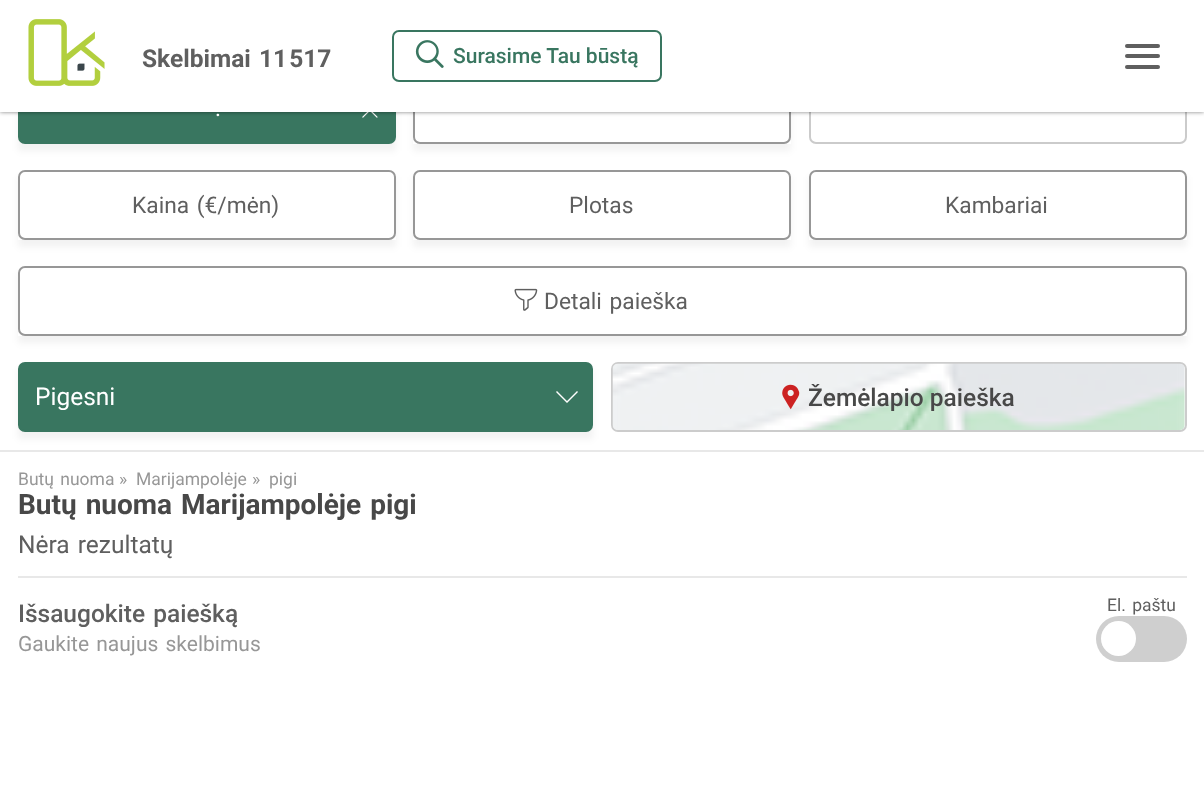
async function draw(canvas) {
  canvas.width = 1204
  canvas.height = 786
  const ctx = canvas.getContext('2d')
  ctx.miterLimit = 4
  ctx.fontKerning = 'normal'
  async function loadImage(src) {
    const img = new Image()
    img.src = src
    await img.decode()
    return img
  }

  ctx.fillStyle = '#fff'
  ctx.fillRect(0, 0, 1204, 786)
  ctx.fillStyle = '#0000000d'
  ctx.filter = 'blur(3.5px)'
  ctx.beginPath()
  ctx.rect(18, 81, 378, 70)
  ctx.fill()
  ctx.filter = 'none'
  ctx.fillStyle = '#397660'
  ctx.beginPath()
  ctx.roundRect(19, 75, 376, 68, 6)
  ctx.fill()
  ctx.strokeStyle = '#397660'
  ctx.lineWidth = 2
  ctx.stroke()
  ctx.drawImage(await loadImage('image2.png'), 362, 112, 16, 6)
  ctx.save()
  ctx.beginPath()
  ctx.moveTo(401, 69)
  ctx.lineTo(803, 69)
  ctx.lineTo(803, 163)
  ctx.lineTo(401, 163)
  ctx.closePath()
  ctx.moveTo(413, 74)
  ctx.lineTo(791, 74)
  ctx.lineTo(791, 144)
  ctx.lineTo(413, 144)
  ctx.closePath()
  ctx.clip('evenodd')
  ctx.fillStyle = '#0000000d'
  ctx.filter = 'blur(3.5px)'
  ctx.beginPath()
  ctx.rect(413, 81, 378, 70)
  ctx.fill()
  ctx.filter = 'none'
  ctx.restore()
  ctx.beginPath()
  ctx.roundRect(414, 75, 376, 68, 6)
  ctx.strokeStyle = '#979797'
  ctx.stroke()
  ctx.beginPath()
  ctx.roundRect(810, 75, 376, 68, 6)
  ctx.strokeStyle = '#cbcbcb'
  ctx.stroke()
  ctx.fillStyle = '#00000080'
  ctx.filter = 'blur(2px)'
  ctx.beginPath()
  ctx.rect(0, 0, 1204, 112)
  ctx.fill()
  ctx.filter = 'none'
  ctx.fillStyle = '#fff'
  ctx.fillRect(0, 0, 1204, 112)
  ctx.drawImage(await loadImage('image0.png'), 28, 19, 77, 67)
  ctx.font = 'bold 24.5px Roboto'
  ctx.fillStyle = '#5f5f5f'
  ctx.fillText('Skelbimai', 142, 67)
  ctx.wordSpacing = '-4px'
  ctx.fillText('11 517', 259, 67)
  ctx.beginPath()
  ctx.roundRect(393, 31, 268, 50, 6)
  ctx.strokeStyle = '#397660'
  ctx.stroke()
  ctx.drawImage(await loadImage('image1.png'), 415, 40, 29, 28)
  ctx.wordSpacing = '0px'
  ctx.font = '500 21px Roboto'
  ctx.fillStyle = '#397660'
  ctx.fillText('Surasime Tau būstą', 453, 63)
  ctx.fillStyle = '#5f5f5f'
  ctx.beginPath()
  ctx.roundRect(1125, 44, 35, 4, 2)
  ctx.fill()
  ctx.beginPath()
  ctx.roundRect(1125, 54, 35, 4, 2)
  ctx.fill()
  ctx.beginPath()
  ctx.roundRect(1125, 65, 35, 4, 2)
  ctx.fill()
  ctx.fillStyle = '#e8e8e8'
  ctx.fillRect(0, 450, 1204, 2)
  ctx.wordSpacing = '2px'
  ctx.font = '22.75px Roboto'
  ctx.fillStyle = '#fff'
  ctx.fillText('.', 215, 116)
  ctx.save()
  ctx.beginPath()
  ctx.moveTo(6, 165)
  ctx.lineTo(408, 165)
  ctx.lineTo(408, 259)
  ctx.lineTo(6, 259)
  ctx.closePath()
  ctx.moveTo(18, 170)
  ctx.lineTo(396, 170)
  ctx.lineTo(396, 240)
  ctx.lineTo(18, 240)
  ctx.closePath()
  ctx.clip('evenodd')
  ctx.fillStyle = '#0000000d'
  ctx.filter = 'blur(3.5px)'
  ctx.beginPath()
  ctx.rect(18, 177, 378, 70)
  ctx.fill()
  ctx.filter = 'none'
  ctx.restore()
  ctx.beginPath()
  ctx.roundRect(19, 171, 376, 68, 6)
  ctx.strokeStyle = '#979797'
  ctx.stroke()
  ctx.fillStyle = '#5f5f5f'
  ctx.fillText('Kaina (€/mėn)', 132, 213)
  ctx.save()
  ctx.beginPath()
  ctx.moveTo(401, 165)
  ctx.lineTo(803, 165)
  ctx.lineTo(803, 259)
  ctx.lineTo(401, 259)
  ctx.closePath()
  ctx.moveTo(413, 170)
  ctx.lineTo(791, 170)
  ctx.lineTo(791, 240)
  ctx.lineTo(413, 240)
  ctx.closePath()
  ctx.clip('evenodd')
  ctx.fillStyle = '#0000000d'
  ctx.filter = 'blur(3.5px)'
  ctx.beginPath()
  ctx.rect(413, 177, 378, 70)
  ctx.fill()
  ctx.filter = 'none'
  ctx.restore()
  ctx.beginPath()
  ctx.roundRect(414, 171, 376, 68, 6)
  ctx.stroke()
  ctx.wordSpacing = '0px'
  ctx.fillText('Plotas', 569, 213)
  ctx.save()
  ctx.beginPath()
  ctx.moveTo(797, 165)
  ctx.lineTo(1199, 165)
  ctx.lineTo(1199, 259)
  ctx.lineTo(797, 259)
  ctx.closePath()
  ctx.moveTo(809, 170)
  ctx.lineTo(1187, 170)
  ctx.lineTo(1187, 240)
  ctx.lineTo(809, 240)
  ctx.closePath()
  ctx.clip('evenodd')
  ctx.fillStyle = '#0000000d'
  ctx.filter = 'blur(3.5px)'
  ctx.beginPath()
  ctx.rect(809, 177, 378, 70)
  ctx.fill()
  ctx.filter = 'none'
  ctx.restore()
  ctx.beginPath()
  ctx.roundRect(810, 171, 376, 68, 6)
  ctx.stroke()
  ctx.fillText('Kambariai', 945, 213)
  ctx.save()
  ctx.beginPath()
  ctx.moveTo(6, 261)
  ctx.lineTo(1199, 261)
  ctx.lineTo(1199, 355)
  ctx.lineTo(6, 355)
  ctx.closePath()
  ctx.moveTo(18, 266)
  ctx.lineTo(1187, 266)
  ctx.lineTo(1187, 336)
  ctx.lineTo(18, 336)
  ctx.closePath()
  ctx.clip('evenodd')
  ctx.fillStyle = '#0000000d'
  ctx.filter = 'blur(3.5px)'
  ctx.beginPath()
  ctx.rect(18, 273, 1169, 70)
  ctx.fill()
  ctx.filter = 'none'
  ctx.restore()
  ctx.beginPath()
  ctx.roundRect(19, 267, 1167, 68, 6)
  ctx.stroke()
  ctx.drawImage(await loadImage('image3.png'), 514, 288, 24, 23)
  ctx.wordSpacing = '2px'
  ctx.fillText('Detali paieška', 544, 309)
  ctx.fillStyle = '#0000000d'
  ctx.filter = 'blur(3.5px)'
  ctx.beginPath()
  ctx.rect(18, 369, 575, 70)
  ctx.fill()
  ctx.filter = 'none'
  ctx.fillStyle = '#397660'
  ctx.beginPath()
  ctx.roundRect(19, 363, 573, 68, 6)
  ctx.fill()
  ctx.strokeStyle = '#397660'
  ctx.stroke()
  ctx.wordSpacing = '0px'
  ctx.font = '24.5px Roboto'
  ctx.fillStyle = '#fff'
  ctx.fillText('Pigesni', 35, 405)
  ctx.beginPath()
  ctx.moveTo(557, 391)
  ctx.lineTo(556, 392)
  ctx.lineTo(567, 403)
  ctx.lineTo(578, 392)
  ctx.lineTo(577, 391)
  ctx.lineTo(567, 401)
  ctx.closePath()
  ctx.fill()
  ctx.beginPath()
  ctx.roundRect(612, 363, 574, 68, 6)
  ctx.strokeStyle = '#ccc'
  ctx.stroke()
  ctx.drawImage(await loadImage('image4.png'), 612, 363, 573, 67)
  ctx.drawImage(await loadImage('image5.png'), 782, 384, 18, 26)
  ctx.font = '500 24.5px Roboto'
  ctx.fillStyle = '#484848'
  ctx.fillText('Žemėlapio paieška', 808, 406)
  ctx.wordSpacing = '2px'
  ctx.font = '17.5px Roboto'
  ctx.fillStyle = '#979797'
  ctx.fillText('Butų nuoma', 18, 485)
  ctx.wordSpacing = '0px'
  ctx.fillText('»', 119, 485)
  ctx.fillText('Marijampolėje', 136, 485)
  ctx.fillText('»', 252, 485)
  ctx.fillText('pigi', 269, 485)
  ctx.wordSpacing = '2px'
  ctx.font = 'bold 28px Roboto'
  ctx.fillStyle = '#484848'
  ctx.fillText('Butų nuoma Marijampolėje pigi', 18, 514)
  ctx.font = '24.5px Roboto'
  ctx.fillStyle = '#5f5f5f'
  ctx.fillText('Nėra rezultatų', 18, 553)
  ctx.fillStyle = '#e8e8e8'
  ctx.fillRect(18, 576, 1169, 2)
  ctx.font = '500 24.5px Roboto'
  ctx.fillStyle = '#5f5f5f'
  ctx.fillText('Išsaugokite paiešką', 18, 622)
  ctx.font = '21px Roboto'
  ctx.fillStyle = '#979797'
  ctx.fillText('Gaukite naujus skelbimus', 18, 651)
  ctx.font = '17.5px Roboto'
  ctx.fillStyle = '#5f5f5f'
  ctx.fillText('El. paštu', 1107, 611)
  ctx.fillStyle = '#cfcfcf'
  ctx.beginPath()
  ctx.roundRect(1096, 616, 91, 46, 23)
  ctx.fill()
  ctx.fillStyle = '#fff'
  ctx.beginPath()
  ctx.arc(1118.5, 638.5, 17.5, 0, 2 * Math.PI)
  ctx.fill()
}

draw(document.querySelector('canvas'))
